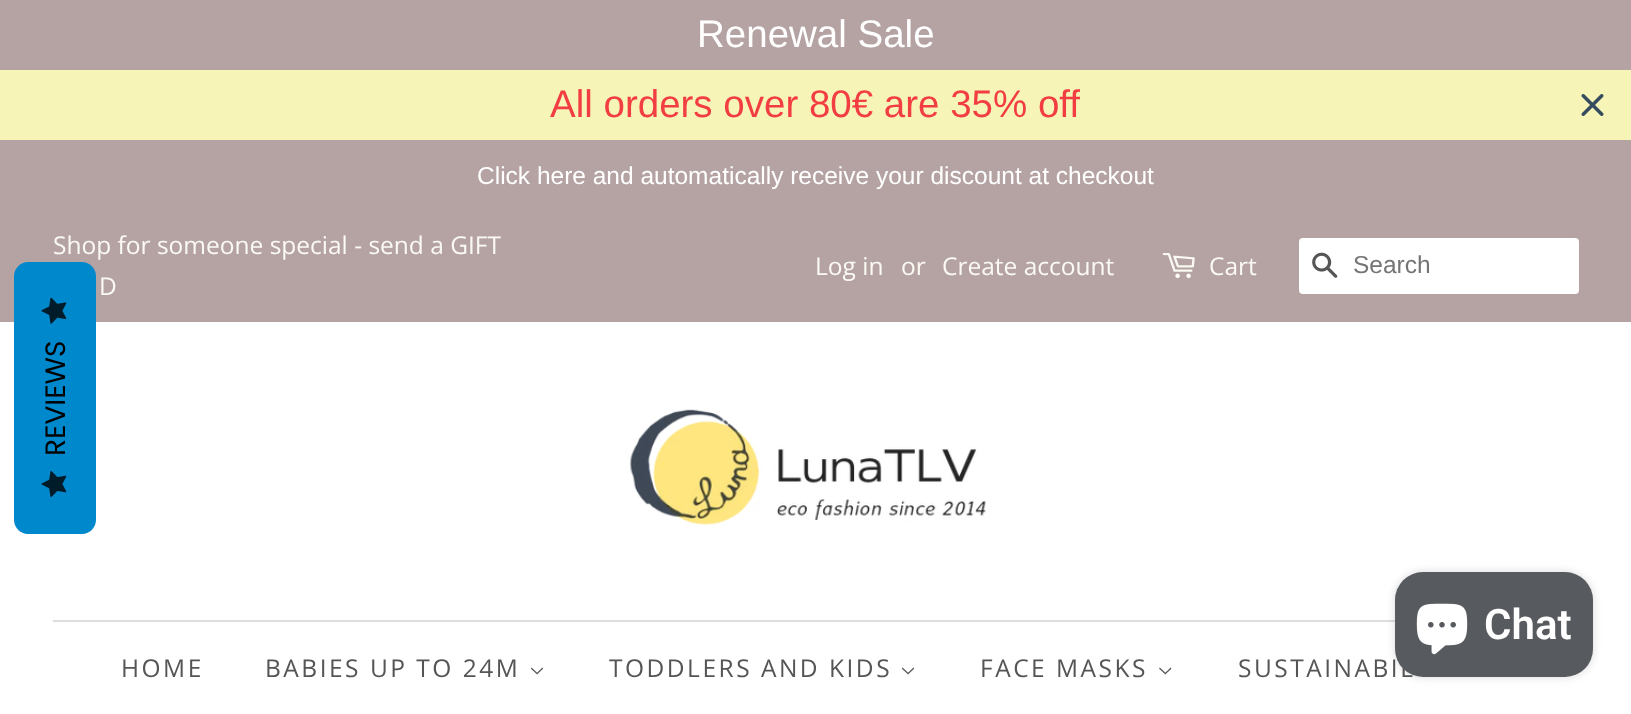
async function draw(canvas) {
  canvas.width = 1631
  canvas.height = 714
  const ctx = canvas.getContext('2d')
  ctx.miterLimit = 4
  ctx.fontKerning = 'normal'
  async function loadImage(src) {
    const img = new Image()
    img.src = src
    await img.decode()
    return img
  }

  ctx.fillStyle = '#fff'
  ctx.fillRect(0, 0, 1631, 714)
  ctx.fillStyle = '#f7f4b8'
  ctx.fillRect(0, 70, 1631, 70)
  ctx.fillStyle = '#b5a3a4'
  ctx.fillRect(0, 0, 1631, 70)
  ctx.font = '38.5px Liberation Sans'
  ctx.fillStyle = '#fff'
  ctx.fillText('Renewal Sale', 697, 47)
  ctx.fillStyle = '#f23e43'
  ctx.fillText('All orders over 80€ are 35% off', 550, 117)
  ctx.fillStyle = '#b5a3a4'
  ctx.fillRect(0, 140, 1631, 182)
  ctx.font = '24.5px Liberation Sans'
  ctx.fillStyle = '#fff'
  ctx.fillText('Click here and automatically receive your discount at checkout', 477, 184)
  ctx.drawImage(await loadImage('image0.png'), 1581, 94, 23, 22)
  ctx.font = '24.5px Open Sans'
  ctx.fillStyle = '#fbfaf2'
  ctx.fillText('Shop for someone special - send a GIFT', 53, 254)
  ctx.fillText('D', 99, 295)
  ctx.fillText('Log in', 815, 275)
  ctx.fillText('or', 901, 275)
  ctx.fillText('Create account', 942, 275)
  ctx.drawImage(await loadImage('image1.png'), 1162, 253, 33, 26)
  ctx.fillText('Cart', 1209, 275)
  ctx.fillStyle = '#fff'
  ctx.beginPath()
  ctx.roundRect(1299, 238, 280, 56, 4)
  ctx.fill()
  ctx.drawImage(await loadImage('image2.png'), 1312, 252, 26, 26)
  ctx.font = '24.5px Liberation Sans'
  ctx.fillStyle = '#757575'
  ctx.fillText('Search', 1353, 273)
  ctx.drawImage(await loadImage('image3.png'), 630, 409, 356, 117)
  ctx.fillStyle = '#ddd'
  ctx.fillRect(53, 620, 1342, 2)
  ctx.letterSpacing = '2.5px'
  ctx.font = '24.5px Open Sans'
  ctx.fillStyle = '#555'
  ctx.fillText('HOME', 121, 677)
  ctx.fillText('BABIES UP TO 24M', 265, 677)
  ctx.drawImage(await loadImage('image4.png'), 531, 667, 12, 8)
  ctx.fillText('TODDLERS AND KIDS', 609, 677)
  ctx.drawImage(await loadImage('image4.png'), 902, 667, 12, 8)
  ctx.fillText('FACE MASKS', 980, 677)
  ctx.drawImage(await loadImage('image5.png'), 1159, 667, 13, 8)
  ctx.fillText('SUSTAINABIL', 1238, 677)
  ctx.fillStyle = '#08c'
  ctx.beginPath()
  ctx.moveTo(14, 520)
  ctx.lineTo(14, 276)
  ctx.bezierCurveTo(14, 269, 20, 262, 28, 262)
  ctx.lineTo(82, 262)
  ctx.bezierCurveTo(90, 262, 96, 269, 96, 276)
  ctx.lineTo(96, 520)
  ctx.bezierCurveTo(96, 527, 90, 534, 82, 534)
  ctx.lineTo(28, 534)
  ctx.bezierCurveTo(20, 534, 14, 527, 14, 520)
  ctx.closePath()
  ctx.fill()
  ctx.drawImage(await loadImage('image6.png'), 41, 297, 26, 27)
  ctx.letterSpacing = '0px'
  ctx.font = '28px Poppins'
  ctx.fillStyle = '#000'
  ctx.save()
  ctx.translate(65, 456)
  ctx.rotate(-90 * Math.PI / 180)
  ctx.fillText('REVIEWS', 0, 0)
  ctx.restore()
  ctx.drawImage(await loadImage('image7.png'), 41, 471, 26, 26)
  ctx.fillStyle = '#00000026'
  ctx.filter = 'blur(4.5px)'
  ctx.beginPath()
  ctx.roundRect(1395, 572, 198, 105, 28)
  ctx.fill()
  ctx.filter = 'none'
  ctx.fillStyle = '#575a5e'
  ctx.beginPath()
  ctx.roundRect(1395, 572, 198, 105, 28)
  ctx.fill()
  ctx.drawImage(await loadImage('image8.png'), 1416, 603, 52, 52)
  ctx.font = '600 42px Roboto'
  ctx.fillStyle = '#fff'
  ctx.fillText('Chat', 1484, 639)
}

draw(document.querySelector('canvas'))
